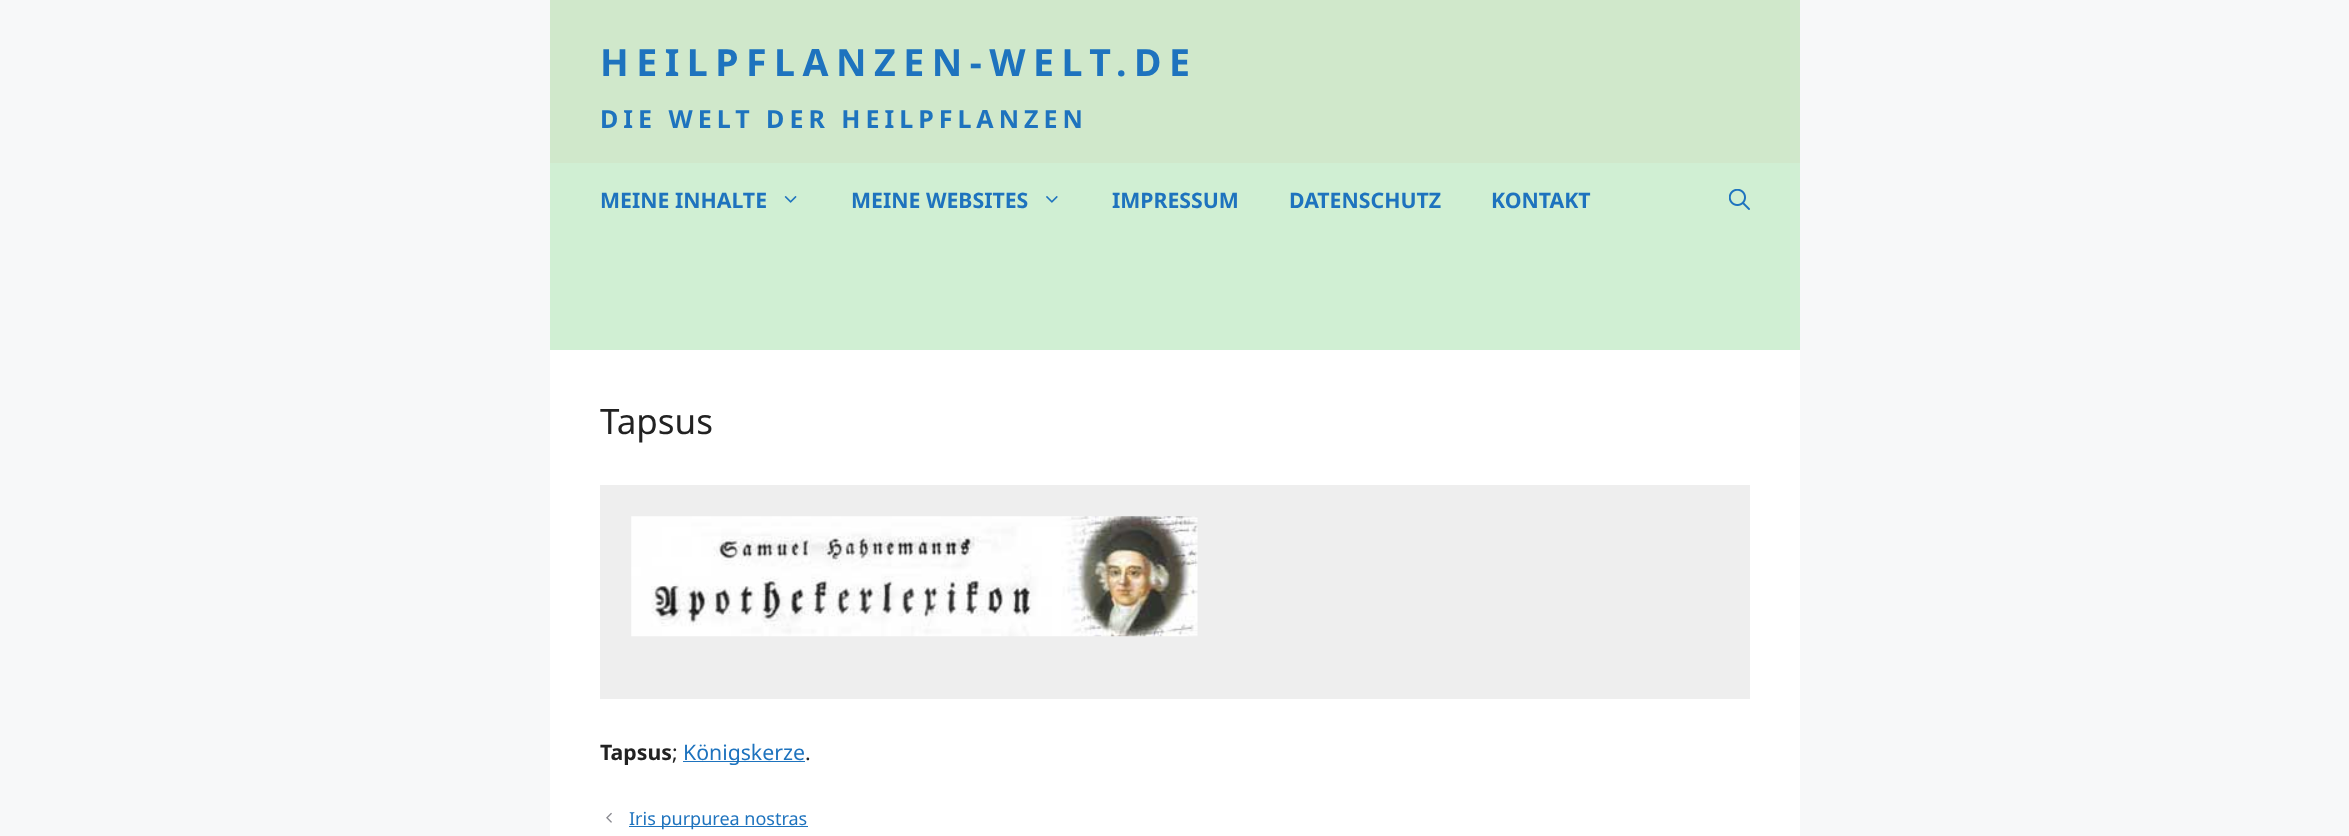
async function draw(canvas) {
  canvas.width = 2349
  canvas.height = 836
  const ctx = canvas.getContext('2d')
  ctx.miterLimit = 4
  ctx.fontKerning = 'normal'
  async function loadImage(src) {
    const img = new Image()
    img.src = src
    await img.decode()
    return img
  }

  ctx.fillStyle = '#f7f8f9'
  ctx.fillRect(0, 0, 2349, 836)
  ctx.fillStyle = '#d0e8cb'
  ctx.fillRect(550, 0, 1250, 163)
  ctx.letterSpacing = '7.5px'
  ctx.font = 'bold 37.5px Noto Sans'
  ctx.fillStyle = '#1e73be'
  ctx.fillText('HEILPFLANZEN-WELT.DE', 600, 76)
  ctx.letterSpacing = '5px'
  ctx.font = 'bold 25px Noto Sans'
  ctx.fillText('DIE WELT DER HEILPFLANZEN', 600, 128)
  ctx.fillStyle = '#d0efd3'
  ctx.fillRect(550, 163, 1250, 187)
  ctx.letterSpacing = '0px'
  ctx.font = 'bold 21.25px Noto Sans'
  ctx.fillStyle = '#1e73be'
  ctx.fillText('MEINE INHALTE', 600, 208)
  ctx.drawImage(await loadImage('image0.png'), 784, 196, 13, 7)
  ctx.fillText('MEINE WEBSITES', 851, 208)
  ctx.drawImage(await loadImage('image1.png'), 1046, 196, 12, 7)
  ctx.fillText('IMPRESSUM', 1112, 208)
  ctx.fillText('DATENSCHUTZ', 1289, 208)
  ctx.fillText('KONTAKT', 1491, 208)
  ctx.drawImage(await loadImage('image2.png'), 1729, 189, 21, 21)
  ctx.fillStyle = '#fff'
  ctx.fillRect(550, 350, 1250, 486)
  ctx.font = '35px Noto Sans'
  ctx.fillStyle = '#222'
  ctx.fillText('Tapsus', 600, 434)
  ctx.fillStyle = '#eee'
  ctx.fillRect(600, 485, 1150, 214)
  ctx.drawImage(await loadImage('image3.png'), 631, 516, 567, 121)
  ctx.font = 'bold 21.25px Noto Sans'
  ctx.fillStyle = '#222'
  ctx.fillText('Tapsus', 600, 760)
  ctx.font = '21.25px Noto Sans'
  ctx.fillText(';', 672, 760)
  ctx.fillStyle = '#1e73be'
  ctx.fillRect(683, 761, 122, 1)
  ctx.fillText('Königskerze', 683, 760)
  ctx.fillStyle = '#222'
  ctx.fillText('.', 805, 760)
  ctx.drawImage(await loadImage('image4.png'), 606, 812, 6, 11)
  ctx.fillStyle = '#1e73be'
  ctx.fillRect(629, 826, 179, 1)
  ctx.font = '18px Noto Sans'
  ctx.fillText('Iris purpurea nostras', 629, 825)
}

draw(document.querySelector('canvas'))
